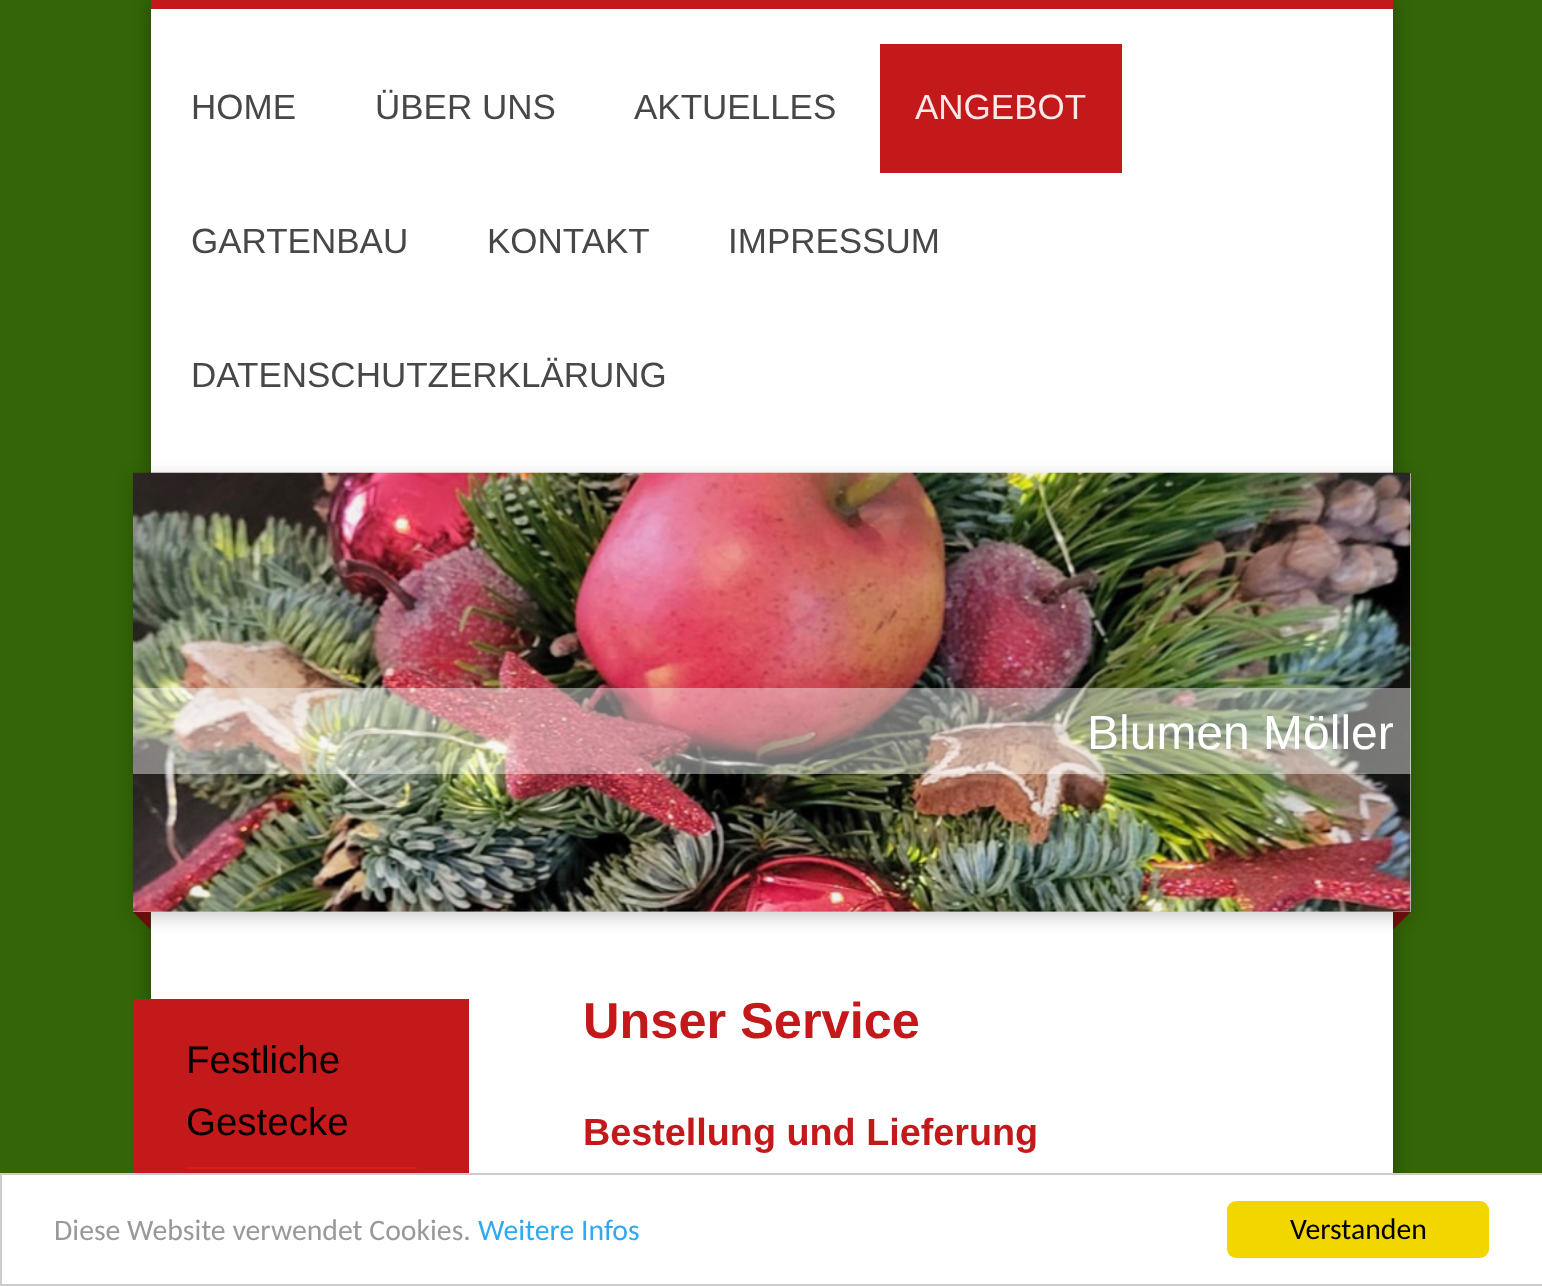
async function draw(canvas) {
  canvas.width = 1542
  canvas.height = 1286
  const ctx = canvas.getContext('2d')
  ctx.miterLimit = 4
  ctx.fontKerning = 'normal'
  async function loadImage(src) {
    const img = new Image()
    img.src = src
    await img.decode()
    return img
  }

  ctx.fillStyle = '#346508'
  ctx.fillRect(0, 0, 1542, 1286)
  ctx.fillStyle = '#0000004d'
  ctx.filter = 'blur(9px)'
  ctx.beginPath()
  ctx.rect(151, 0, 1242, 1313)
  ctx.fill()
  ctx.filter = 'none'
  ctx.fillStyle = '#fff'
  ctx.fillRect(151, 9, 1242, 1164)
  ctx.fillStyle = '#c3191a'
  ctx.fillRect(151, 0, 1242, 9)
  ctx.font = '35px Liberation Sans'
  ctx.fillStyle = '#474747'
  ctx.fillText('HOME', 191, 119)
  ctx.fillText('ÜBER UNS', 375, 119)
  ctx.fillText('AKTUELLES', 634, 119)
  ctx.fillStyle = '#c3191a'
  ctx.fillRect(880, 44, 242, 129)
  ctx.fillStyle = '#f9e8e8'
  ctx.fillText('ANGEBOT', 915, 119)
  ctx.fillStyle = '#474747'
  ctx.fillText('GARTENBAU', 191, 253)
  ctx.fillText('KONTAKT', 487, 253)
  ctx.fillText('IMPRESSUM', 728, 253)
  ctx.fillText('DATENSCHUTZERKLÄRUNG', 191, 387)
  ctx.fillStyle = '#00000033'
  ctx.filter = 'blur(9px)'
  ctx.beginPath()
  ctx.rect(133, 478, 1278, 439)
  ctx.fill()
  ctx.filter = 'none'
  ctx.fillStyle = '#690d0e'
  ctx.beginPath()
  ctx.moveTo(150.5, 894.5)
  ctx.lineTo(150.5, 929.5)
  ctx.lineTo(133, 912)
  ctx.closePath()
  ctx.fill()
  ctx.beginPath()
  ctx.moveTo(1393, 929.5)
  ctx.lineTo(1393, 894.5)
  ctx.lineTo(1410.5, 912)
  ctx.closePath()
  ctx.fill()
  ctx.fillStyle = '#ccc'
  ctx.fillRect(133, 473, 1278, 439)
  ctx.drawImage(await loadImage('image0.png'), 133, 472, 1278, 440)
  ctx.fillStyle = '#ffffff6e'
  ctx.fillRect(133, 688, 1278, 86)
  ctx.font = '48px Liberation Sans'
  ctx.fillStyle = '#fff'
  ctx.fillText('Blumen Möller', 1087, 749)
  ctx.fillStyle = '#c3191a'
  ctx.fillRect(133, 999, 336, 174)
  ctx.fillStyle = '#d71c1d'
  ctx.fillRect(186, 1167, 231, 2)
  ctx.font = '38.5px Liberation Sans'
  ctx.fillStyle = '#000'
  ctx.fillText('Festliche', 186, 1073)
  ctx.fillText('Gestecke', 186, 1135)
  ctx.font = 'bold 50.5px Liberation Sans'
  ctx.fillStyle = '#c3191a'
  ctx.fillText('Unser Service', 583, 1038)
  ctx.font = 'bold 37.75px Liberation Sans'
  ctx.fillText('Bestellung und Lieferung', 583, 1145)
  ctx.fillStyle = '#fff'
  ctx.beginPath()
  ctx.rect(1, 1174, 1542, 111)
  ctx.fill()
  ctx.strokeStyle = '#ccc'
  ctx.lineWidth = 2
  ctx.stroke()
  ctx.font = '29.75px Carlito'
  ctx.fillStyle = '#999'
  ctx.fillText('Diese Website verwendet Cookies.', 54, 1240)
  ctx.fillStyle = '#31a8f0'
  ctx.fillText('Weitere Infos', 478, 1240)
  ctx.fillStyle = '#f1d600'
  ctx.beginPath()
  ctx.roundRect(1227, 1201, 262, 57, 9)
  ctx.fill()
  ctx.fillStyle = '#000'
  ctx.fillText('Verstanden', 1290, 1239)
}

draw(document.querySelector('canvas'))
